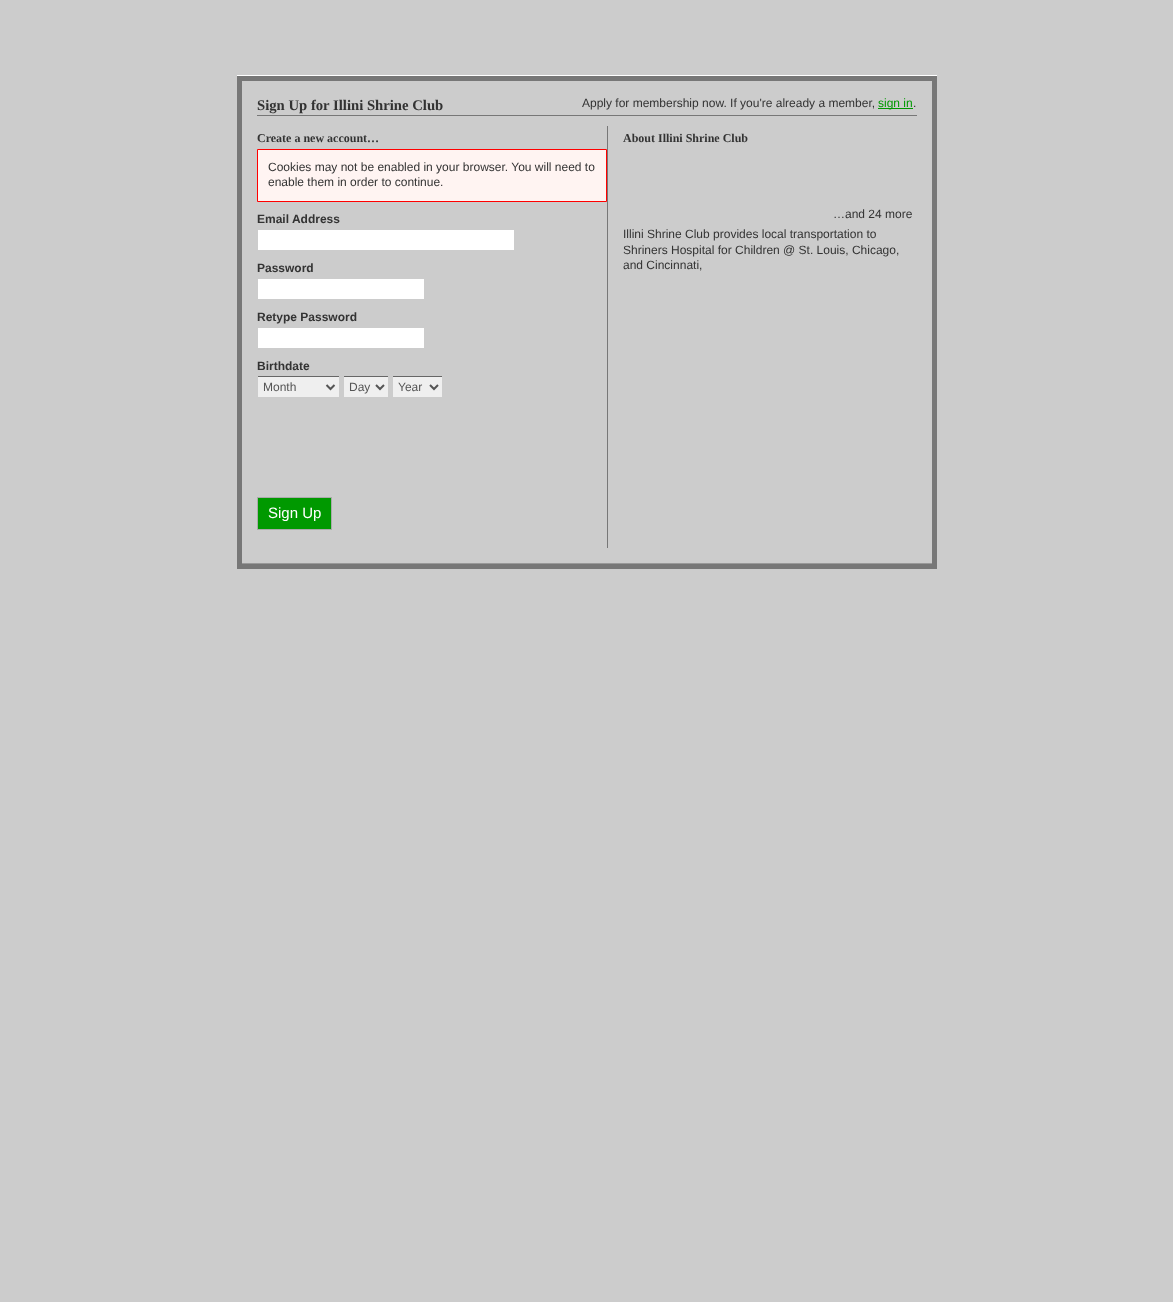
async function draw(canvas) {
  canvas.width = 1173
  canvas.height = 1302
  const ctx = canvas.getContext('2d')
  ctx.miterLimit = 4
  ctx.fontKerning = 'normal'

  ctx.fillStyle = '#ccc'
  ctx.fillRect(0, 0, 1173, 1302)
  ctx.fillStyle = '#fff'
  ctx.fillRect(237, 75, 700, 1)
  ctx.fillStyle = '#999'
  ctx.fillRect(242, 563, 690, 1)
  ctx.strokeStyle = '#777'
  ctx.lineWidth = 5
  ctx.strokeRect(239.5, 78.5, 695, 488)
  ctx.fillStyle = '#777'
  ctx.fillRect(257, 115, 660, 1)
  ctx.font = 'bold 14.7px Liberation Serif'
  ctx.fillStyle = '#333'
  ctx.fillText('Sign Up for Illini Shrine Club', 257, 110)
  ctx.font = '12px Liberation Sans'
  ctx.fillText('Apply for membership now. If you\'re already a member,', 582, 107)
  ctx.fillStyle = '#090'
  ctx.fillRect(878, 108, 35, 1)
  ctx.fillText('sign in', 878, 107)
  ctx.fillStyle = '#333'
  ctx.fillText('.', 913, 107)
  ctx.fillStyle = '#777'
  ctx.fillRect(607, 126, 1, 422)
  ctx.font = 'bold 12px Liberation Serif'
  ctx.fillStyle = '#333'
  ctx.fillText('Create a new account…', 257, 142)
  ctx.fillStyle = '#fff4f2'
  ctx.beginPath()
  ctx.rect(257.5, 149.5, 349, 52)
  ctx.fill()
  ctx.strokeStyle = '#f00'
  ctx.lineWidth = 1
  ctx.stroke()
  ctx.font = '12px Liberation Sans'
  ctx.fillStyle = '#333'
  ctx.fillText('Cookies may not be enabled in your browser. You will need to', 268, 171)
  ctx.fillText('enable them in order to continue.', 268, 186)
  ctx.font = 'bold 12px Liberation Sans'
  ctx.fillText('Email Address', 257, 223)
  ctx.fillStyle = '#fff'
  ctx.fillRect(258, 230, 256, 20)
  ctx.fillStyle = '#333'
  ctx.fillText('Password', 257, 272)
  ctx.fillStyle = '#fff'
  ctx.fillRect(258, 279, 166, 20)
  ctx.fillStyle = '#333'
  ctx.fillText('Retype Password', 257, 321)
  ctx.fillStyle = '#fff'
  ctx.fillRect(258, 328, 166, 20)
  ctx.fillStyle = '#333'
  ctx.fillText('Birthdate', 257, 370)
  ctx.fillStyle = '#efefef'
  ctx.fillRect(258, 377, 81, 20)
  ctx.fillStyle = '#666'
  ctx.fillRect(257, 376, 83, 1)
  ctx.fillStyle = '#ccc'
  ctx.fillRect(339, 376, 1, 1)
  ctx.fillRect(257, 376, 1, 1)
  ctx.beginPath()
  ctx.moveTo(326.5, 385)
  ctx.lineTo(330.5, 389)
  ctx.lineTo(334.5, 385)
  ctx.strokeStyle = '#555'
  ctx.lineWidth = 2
  ctx.stroke()
  ctx.font = '12px Liberation Sans'
  ctx.fillStyle = '#555'
  ctx.fillText('Month', 263, 391)
  ctx.fillStyle = '#efefef'
  ctx.fillRect(344, 377, 44, 20)
  ctx.fillStyle = '#666'
  ctx.fillRect(343, 376, 46, 1)
  ctx.fillStyle = '#ccc'
  ctx.fillRect(388, 376, 1, 1)
  ctx.fillRect(343, 376, 1, 1)
  ctx.beginPath()
  ctx.moveTo(376, 385)
  ctx.lineTo(380, 389)
  ctx.lineTo(384, 385)
  ctx.stroke()
  ctx.fillStyle = '#555'
  ctx.fillText('Day', 349, 391)
  ctx.fillStyle = '#efefef'
  ctx.fillRect(393, 377, 49, 20)
  ctx.fillStyle = '#666'
  ctx.fillRect(392, 376, 51, 1)
  ctx.fillStyle = '#ccc'
  ctx.fillRect(442, 376, 1, 1)
  ctx.fillRect(392, 376, 1, 1)
  ctx.beginPath()
  ctx.moveTo(430, 385)
  ctx.lineTo(434, 389)
  ctx.lineTo(438, 385)
  ctx.stroke()
  ctx.fillStyle = '#555'
  ctx.fillText('Year', 398, 391)
  ctx.fillStyle = '#090'
  ctx.beginPath()
  ctx.rect(257.5, 497.5, 74, 32)
  ctx.fill()
  ctx.strokeStyle = '#aaa'
  ctx.lineWidth = 1
  ctx.stroke()
  ctx.font = '15px Liberation Sans'
  ctx.fillStyle = '#fff'
  ctx.fillText('Sign Up', 268, 518)
  ctx.font = 'bold 12px Liberation Serif'
  ctx.fillStyle = '#333'
  ctx.fillText('About Illini Shrine Club', 623, 142)
  ctx.font = '12px Liberation Sans'
  ctx.fillText('…and 24 more', 833, 218)
  ctx.fillText('Illini Shrine Club provides local transportation to', 623, 238)
  ctx.fillText('Shriners Hospital for Children @ St. Louis, Chicago,', 623, 254)
  ctx.fillText('and Cincinnati,', 623, 269)
}

draw(document.querySelector('canvas'))
